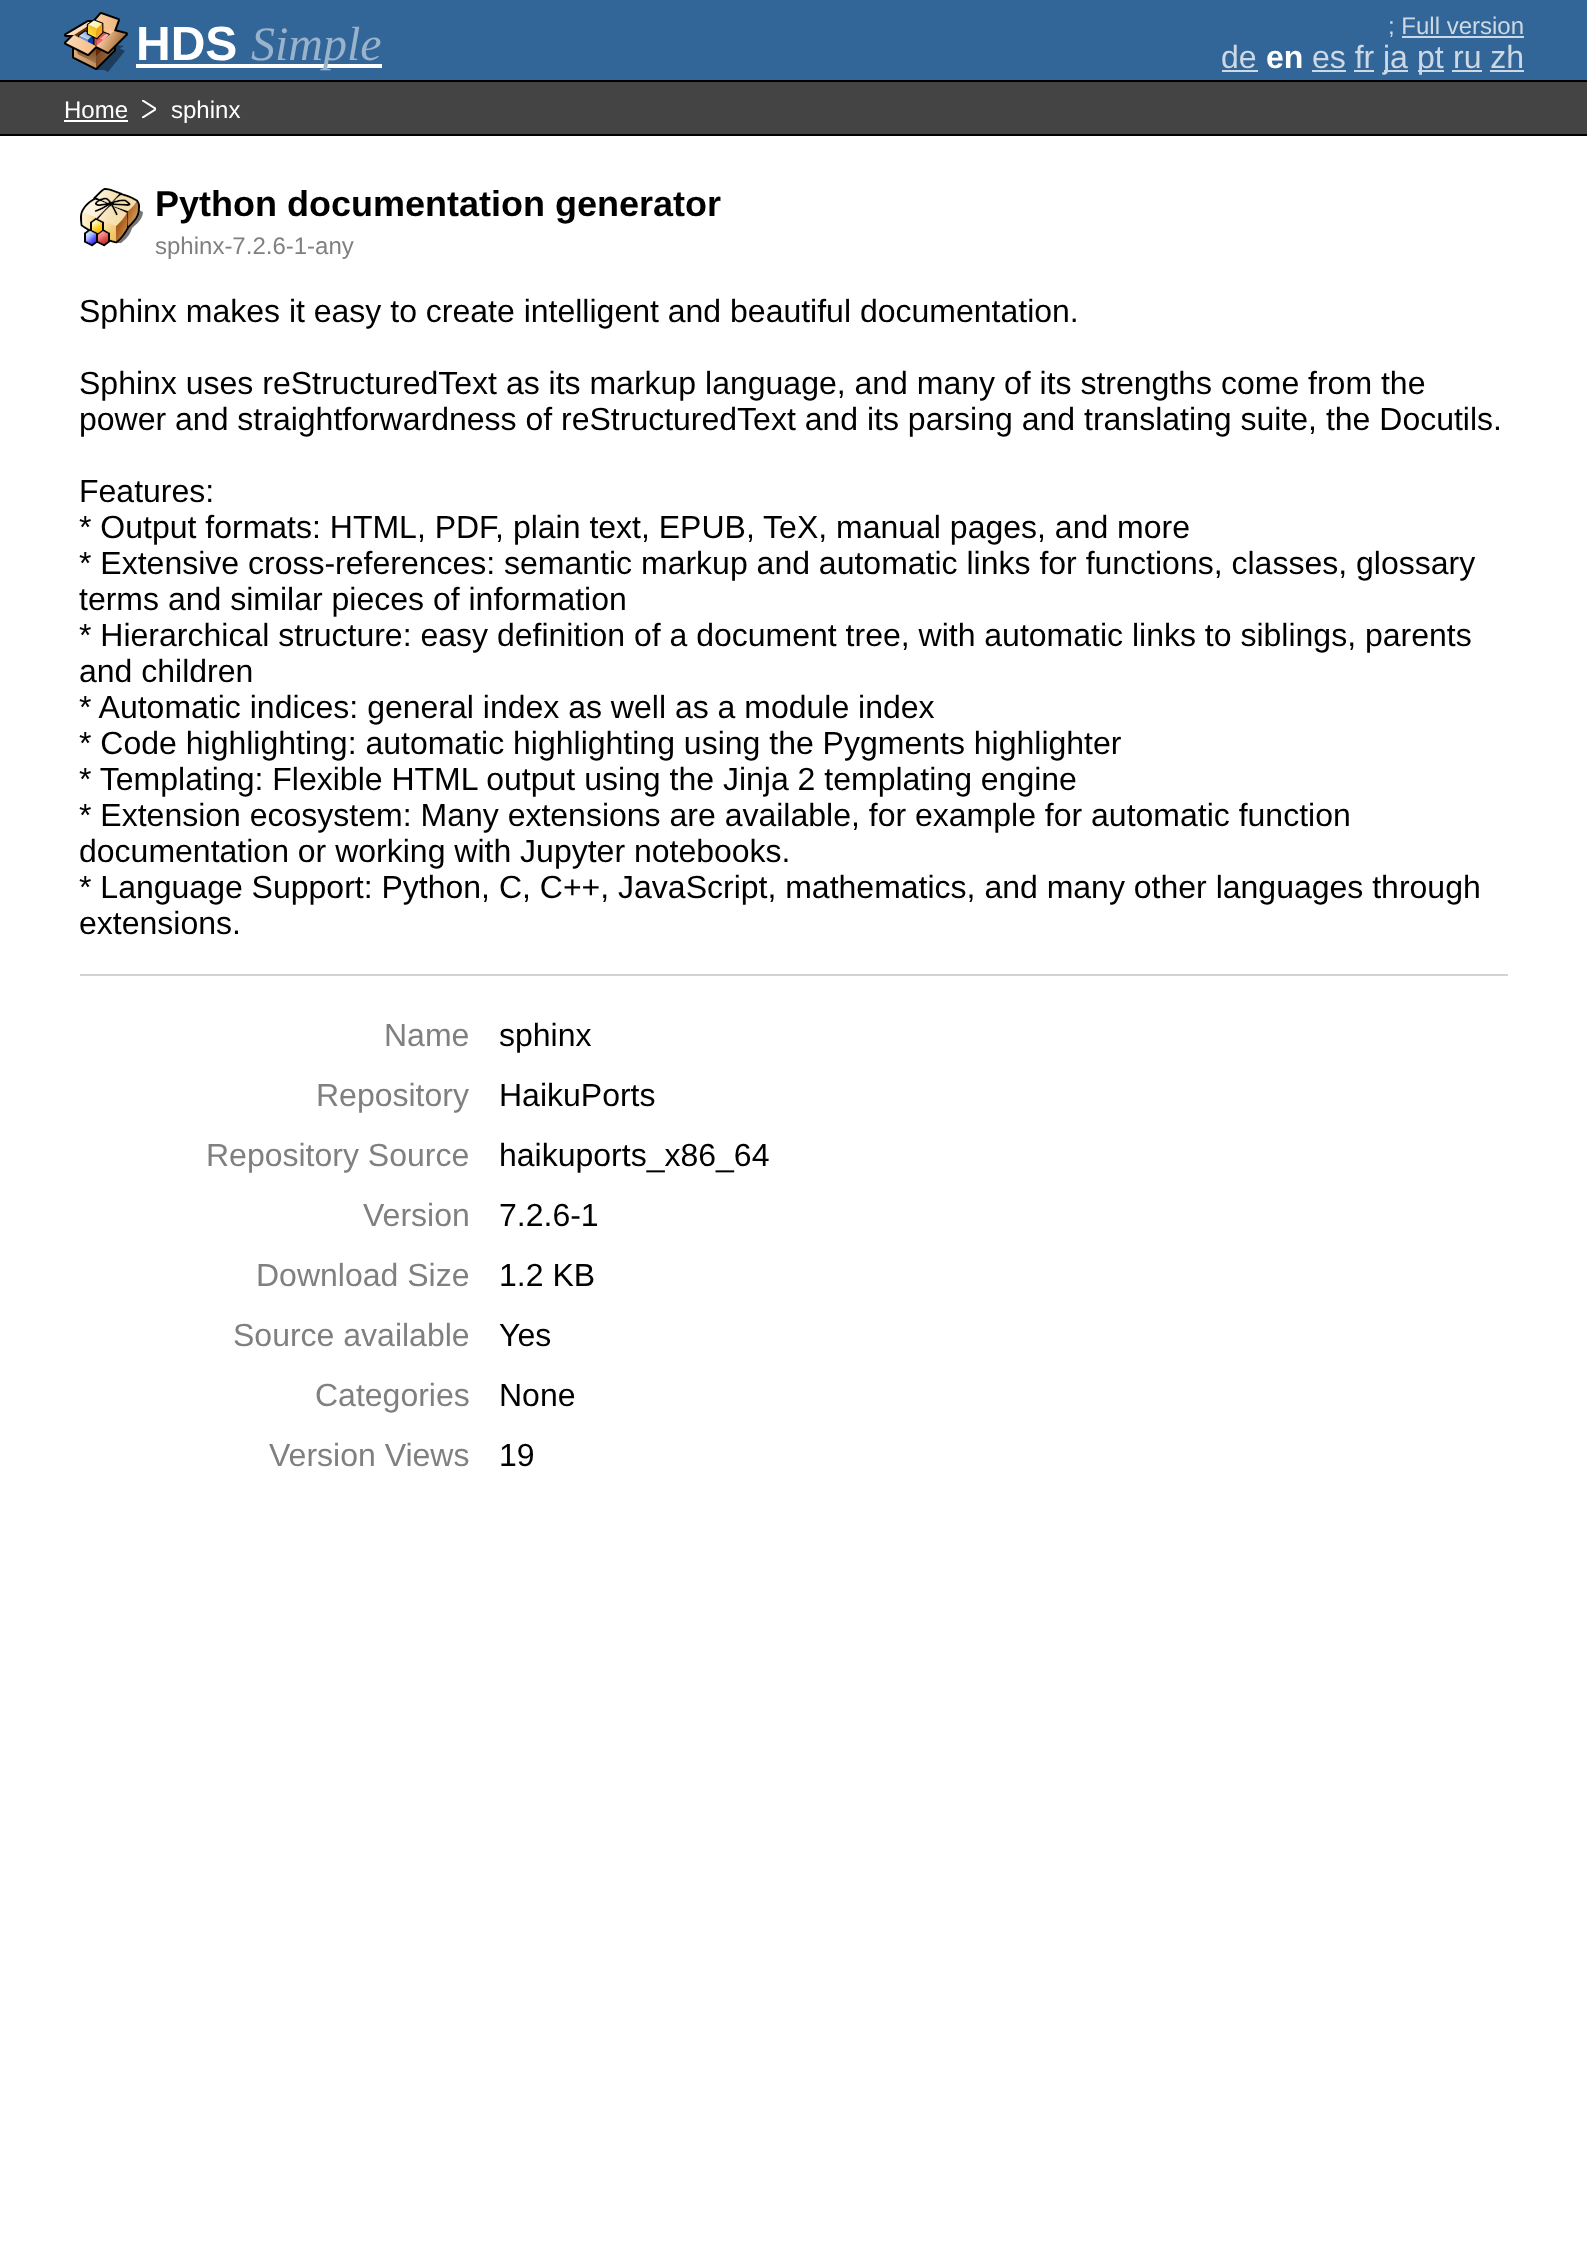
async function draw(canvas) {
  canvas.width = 1587
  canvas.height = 2246
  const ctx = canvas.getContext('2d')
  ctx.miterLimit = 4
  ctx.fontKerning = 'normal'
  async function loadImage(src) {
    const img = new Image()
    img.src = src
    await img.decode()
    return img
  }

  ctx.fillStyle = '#fff'
  ctx.fillRect(0, 0, 1587, 2246)
  ctx.fillStyle = '#336698'
  ctx.fillRect(0, 0, 1587, 80)
  ctx.fillStyle = '#000'
  ctx.fillRect(0, 80, 1587, 2)
  ctx.drawImage(await loadImage('image0.png'), 64, 12, 64, 60)
  ctx.font = 'bold 48px Liberation Sans'
  ctx.fillStyle = '#fff'
  ctx.fillText('HDS', 136, 60)
  ctx.fillRect(136, 64, 246, 4)
  ctx.font = 'italic 48px Liberation Serif'
  ctx.fillStyle = '#9ab3cc'
  ctx.fillText('Simple', 251, 60)
  ctx.font = '24px Liberation Sans'
  ctx.fillStyle = '#ccd9e5'
  ctx.fillText('; Full version', 1388, 34)
  ctx.fillRect(1402, 36, 122, 2)
  ctx.font = '32px Liberation Sans'
  ctx.fillText('de', 1221, 68)
  ctx.fillRect(1222, 70, 36, 2)
  ctx.font = 'bold 32px Liberation Sans'
  ctx.fillStyle = '#fff'
  ctx.fillText('en', 1266, 68)
  ctx.font = '32px Liberation Sans'
  ctx.fillStyle = '#ccd9e5'
  ctx.fillText('es fr', 1312, 68)
  ctx.fillRect(1312, 70, 34, 2)
  ctx.fillRect(1354, 70, 20, 2)
  ctx.fillRect(1384, 70, 24, 2)
  ctx.fillText('ja', 1383, 68)
  ctx.fillRect(1418, 70, 26, 2)
  ctx.fillText('pt', 1417, 68)
  ctx.fillRect(1452, 70, 30, 2)
  ctx.fillText('ru zh', 1453, 68)
  ctx.fillRect(1490, 70, 34, 2)
  ctx.fillStyle = '#444'
  ctx.fillRect(0, 82, 1587, 52)
  ctx.fillStyle = '#000'
  ctx.fillRect(0, 134, 1587, 2)
  ctx.font = '24px Liberation Sans'
  ctx.fillStyle = '#fff'
  ctx.fillText('Home', 64, 118)
  ctx.fillRect(64, 120, 64, 2)
  ctx.fillText('sphinx', 171, 118)
  ctx.save()
  ctx.beginPath()
  ctx.rect(142, 100, 14, 18)
  ctx.clip()
  ctx.beginPath()
  ctx.moveTo(142, 118)
  ctx.lineTo(156, 109)
  ctx.lineTo(142, 100)
  ctx.strokeStyle = '#fff'
  ctx.lineWidth = 2
  ctx.stroke()
  ctx.restore()
  ctx.drawImage(await loadImage('image1.png'), 80, 188, 63, 59)
  ctx.font = 'bold 36px Liberation Sans'
  ctx.fillStyle = '#000'
  ctx.fillText('Python documentation generator', 155, 216)
  ctx.font = '24px Liberation Sans'
  ctx.fillStyle = '#808080'
  ctx.fillText('sphinx-7.2.6-1-any', 155, 254)
  ctx.font = '32px Liberation Sans'
  ctx.fillStyle = '#000'
  ctx.fillText('Sphinx makes it easy to create intelligent and beautiful documentation.', 79, 322)
  ctx.fillText('Sphinx uses reStructuredText as its markup language, and many of its strengths come from the', 79, 394)
  ctx.fillText('power and straightforwardness of reStructuredText and its parsing and translating suite, the Docutils.', 79, 430)
  ctx.fillText('Features:', 79, 502)
  ctx.fillText('* Output formats: HTML, PDF, plain text, EPUB, TeX, manual pages, and more', 79, 538)
  ctx.fillText('* Extensive cross-references: semantic markup and automatic links for functions, classes, glossary', 79, 574)
  ctx.fillText('terms and similar pieces of information', 79, 610)
  ctx.fillText('* Hierarchical structure: easy definition of a document tree, with automatic links to siblings, parents', 79, 646)
  ctx.fillText('and children', 79, 682)
  ctx.fillText('* Automatic indices: general index as well as a module index', 79, 718)
  ctx.fillText('* Code highlighting: automatic highlighting using the Pygments highlighter', 79, 754)
  ctx.fillText('* Templating: Flexible HTML output using the Jinja 2 templating engine', 79, 790)
  ctx.fillText('* Extension ecosystem: Many extensions are available, for example for automatic function', 79, 826)
  ctx.fillText('documentation or working with Jupyter notebooks.', 79, 862)
  ctx.fillText('* Language Support: Python, C, C++, JavaScript, mathematics, and many other languages through', 79, 898)
  ctx.fillText('extensions.', 79, 934)
  ctx.fillStyle = '#d3d3d3'
  ctx.fillRect(80, 974, 1428, 2)
  ctx.fillStyle = '#808080'
  ctx.fillText('Name', 384, 1046)
  ctx.fillStyle = '#000'
  ctx.fillText('sphinx', 499, 1046)
  ctx.fillStyle = '#808080'
  ctx.fillText('Repository', 316, 1106)
  ctx.fillStyle = '#000'
  ctx.fillText('HaikuPorts', 499, 1106)
  ctx.fillStyle = '#808080'
  ctx.fillText('Repository Source', 206, 1166)
  ctx.fillStyle = '#000'
  ctx.fillText('haikuports_x86_64', 499, 1166)
  ctx.fillStyle = '#808080'
  ctx.fillText('Version', 363, 1226)
  ctx.fillStyle = '#000'
  ctx.fillText('7.2.6-1', 499, 1226)
  ctx.fillStyle = '#808080'
  ctx.fillText('Download Size', 256, 1286)
  ctx.fillStyle = '#000'
  ctx.fillText('1.2 KB', 499, 1286)
  ctx.fillStyle = '#808080'
  ctx.fillText('Source available', 233, 1346)
  ctx.fillStyle = '#000'
  ctx.fillText('Yes', 499, 1346)
  ctx.fillStyle = '#808080'
  ctx.fillText('Categories', 315, 1406)
  ctx.fillStyle = '#000'
  ctx.fillText('None', 499, 1406)
  ctx.fillStyle = '#808080'
  ctx.fillText('Version Views', 269, 1466)
  ctx.fillStyle = '#000'
  ctx.fillText('19', 499, 1466)
}

draw(document.querySelector('canvas'))
